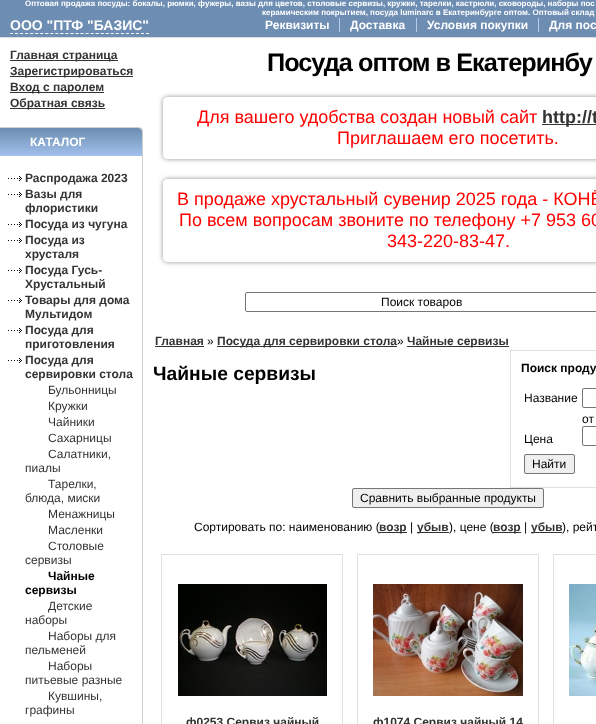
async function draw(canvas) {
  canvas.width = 596
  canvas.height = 724
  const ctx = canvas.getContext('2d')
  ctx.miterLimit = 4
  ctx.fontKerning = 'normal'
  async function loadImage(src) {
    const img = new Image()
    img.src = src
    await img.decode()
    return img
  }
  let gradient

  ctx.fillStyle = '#fff'
  ctx.fillRect(0, 0, 596, 724)
  ctx.fillStyle = '#e1dddd'
  ctx.fillRect(0, 37, 596, 1)
  ctx.fillStyle = '#6d8db3'
  ctx.fillRect(0, 0, 596, 37)
  ctx.font = 'bold 8px Liberation Sans'
  ctx.fillStyle = '#fff'
  ctx.fillText('Оптовая продажа посуды: бокалы, рюмки, фужеры, вазы для цветов, столовые сервизы, кружки, тарелки, кастрюли, сковороды, наборы пос', 25, 6)
  ctx.fillText('керамическим покрытием, посуда luminarc в Екатеринбурге оптом. Оптовый склад', 262, 15)
  ctx.font = 'bold 14px Liberation Sans'
  ctx.fillText('ООО "ПТФ "БАЗИС"', 10, 30)
  ctx.beginPath()
  ctx.moveTo(10, 33.5)
  ctx.lineTo(149, 33.5)
  ctx.strokeStyle = '#fff'
  ctx.setLineDash([3, 2.04])
  ctx.stroke()
  ctx.font = 'bold 12px Liberation Sans'
  ctx.fillText('Реквизиты', 265, 29)
  ctx.fillStyle = '#b7cce9'
  ctx.fillRect(339, 18, 1, 14)
  ctx.fillStyle = '#fff'
  ctx.fillText('Доставка', 350, 29)
  ctx.fillStyle = '#b7cce9'
  ctx.fillRect(416, 18, 1, 14)
  ctx.fillStyle = '#fff'
  ctx.fillText('Условия покупки', 427, 29)
  ctx.fillStyle = '#b7cce9'
  ctx.fillRect(538, 18, 1, 14)
  ctx.fillStyle = '#fff'
  ctx.fillText('Для пос', 549, 29)
  ctx.fillStyle = '#333'
  ctx.fillRect(10, 60, 108, 1)
  ctx.fillText('Главная страница', 10, 59)
  ctx.fillRect(10, 76, 123, 1)
  ctx.fillText('Зарегистрироваться', 10, 75)
  ctx.fillRect(10, 92, 94, 1)
  ctx.fillText('Вход с паролем', 10, 91)
  ctx.fillRect(10, 108, 95, 1)
  ctx.fillText('Обратная связь', 10, 107)
  ctx.save()
  ctx.beginPath()
  ctx.roundRect(0, 127, 143, 29, [0, 5, 0, 0])
  ctx.clip()
  gradient = ctx.createLinearGradient(71, 128, 71, 156)
  gradient.addColorStop(0, '#6d8eb1')
  gradient.addColorStop(1, '#a1c0ec')
  ctx.fillStyle = gradient
  ctx.fillRect(0, 128, 143, 28)
  ctx.restore()
  ctx.fillStyle = '#cfd0d1'
  ctx.beginPath()
  ctx.moveTo(0, 127)
  ctx.lineTo(138, 127)
  ctx.bezierCurveTo(141, 127, 143, 129, 143, 132)
  ctx.lineTo(143, 156)
  ctx.lineTo(0, 156)
  ctx.closePath()
  ctx.moveTo(0, 128)
  ctx.lineTo(138, 128)
  ctx.bezierCurveTo(140, 128, 142, 130, 142, 132)
  ctx.lineTo(142, 156)
  ctx.lineTo(0, 156)
  ctx.closePath()
  ctx.fill('evenodd')
  ctx.fillStyle = '#fff'
  ctx.fillText('КАТАЛОГ', 30, 146)
  ctx.fillStyle = '#cfd0d1'
  ctx.fillRect(142, 156, 1, 568)
  ctx.drawImage(await loadImage('image0.png'), 8, 176, 14, 5)
  ctx.fillStyle = '#333'
  ctx.fillText('Распродажа 2023', 25, 182)
  ctx.drawImage(await loadImage('image0.png'), 8, 192, 14, 5)
  ctx.fillText('Вазы для', 25, 198)
  ctx.fillText('флористики', 25, 212)
  ctx.drawImage(await loadImage('image0.png'), 8, 222, 14, 5)
  ctx.fillText('Посуда из чугуна', 25, 228)
  ctx.drawImage(await loadImage('image0.png'), 8, 238, 14, 5)
  ctx.fillText('Посуда из', 25, 244)
  ctx.fillText('хрусталя', 25, 258)
  ctx.drawImage(await loadImage('image0.png'), 8, 268, 14, 5)
  ctx.fillText('Посуда Гусь-', 25, 274)
  ctx.fillText('Хрустальный', 25, 288)
  ctx.drawImage(await loadImage('image0.png'), 8, 298, 14, 5)
  ctx.fillText('Товары для дома', 25, 304)
  ctx.fillText('Мультидом', 25, 318)
  ctx.drawImage(await loadImage('image0.png'), 8, 328, 14, 5)
  ctx.fillText('Посуда для', 25, 334)
  ctx.fillText('приготовления', 25, 348)
  ctx.drawImage(await loadImage('image0.png'), 8, 358, 14, 5)
  ctx.fillText('Посуда для', 25, 364)
  ctx.fillText('сервировки стола', 25, 378)
  ctx.font = '12px Liberation Sans'
  ctx.fillText('Бульонницы', 48, 394)
  ctx.fillText('Кружки', 48, 410)
  ctx.fillText('Чайники', 48, 426)
  ctx.fillText('Сахарницы', 48, 442)
  ctx.fillText('Салатники,', 48, 458)
  ctx.fillText('пиалы', 25, 472)
  ctx.fillText('Тарелки,', 48, 488)
  ctx.fillText('блюда, миски', 25, 502)
  ctx.fillText('Менажницы', 48, 518)
  ctx.fillText('Масленки', 48, 534)
  ctx.fillText('Столовые', 48, 550)
  ctx.fillText('сервизы', 25, 564)
  ctx.font = 'bold 12px Liberation Sans'
  ctx.fillStyle = '#000'
  ctx.fillText('Чайные', 48, 580)
  ctx.fillText('сервизы', 25, 594)
  ctx.font = '12px Liberation Sans'
  ctx.fillStyle = '#333'
  ctx.fillText('Детские', 48, 610)
  ctx.fillText('наборы', 25, 624)
  ctx.fillText('Наборы для', 48, 640)
  ctx.fillText('пельменей', 25, 654)
  ctx.fillText('Наборы', 48, 670)
  ctx.fillText('питьевые разные', 25, 684)
  ctx.fillText('Кувшины,', 48, 700)
  ctx.fillText('графины', 25, 714)
  ctx.letterSpacing = '-1px'
  ctx.font = 'bold 25.3px Liberation Sans'
  ctx.fillStyle = '#000'
  ctx.fillText('Посуда оптом в Екатеринбу', 267, 71)
  ctx.save()
  ctx.beginPath()
  ctx.moveTo(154, 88)
  ctx.lineTo(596, 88)
  ctx.lineTo(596, 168)
  ctx.lineTo(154, 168)
  ctx.closePath()
  ctx.moveTo(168, 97)
  ctx.lineTo(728, 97)
  ctx.bezierCurveTo(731, 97, 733, 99, 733, 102)
  ctx.lineTo(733, 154)
  ctx.bezierCurveTo(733, 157, 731, 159, 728, 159)
  ctx.lineTo(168, 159)
  ctx.bezierCurveTo(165, 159, 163, 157, 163, 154)
  ctx.lineTo(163, 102)
  ctx.bezierCurveTo(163, 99, 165, 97, 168, 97)
  ctx.closePath()
  ctx.clip('evenodd')
  ctx.fillStyle = '#909090'
  ctx.filter = 'blur(2.5px)'
  ctx.beginPath()
  ctx.roundRect(163, 97, 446, 62, 5)
  ctx.fill()
  ctx.filter = 'none'
  ctx.restore()
  ctx.letterSpacing = '0px'
  ctx.font = '18px Liberation Sans'
  ctx.fillStyle = '#f00'
  ctx.fillText('Для вашего удобства создан новый сайт', 197, 123)
  ctx.fillStyle = '#333'
  ctx.fillRect(542, 124, 54, 1)
  ctx.font = 'bold 18px Liberation Sans'
  ctx.fillText('http://t', 542, 123)
  ctx.font = '18px Liberation Sans'
  ctx.fillStyle = '#f00'
  ctx.fillText('Приглашаем его посетить.', 337, 144)
  ctx.save()
  ctx.beginPath()
  ctx.moveTo(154, 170)
  ctx.lineTo(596, 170)
  ctx.lineTo(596, 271)
  ctx.lineTo(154, 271)
  ctx.closePath()
  ctx.moveTo(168, 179)
  ctx.lineTo(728, 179)
  ctx.bezierCurveTo(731, 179, 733, 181, 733, 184)
  ctx.lineTo(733, 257)
  ctx.bezierCurveTo(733, 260, 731, 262, 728, 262)
  ctx.lineTo(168, 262)
  ctx.bezierCurveTo(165, 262, 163, 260, 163, 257)
  ctx.lineTo(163, 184)
  ctx.bezierCurveTo(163, 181, 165, 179, 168, 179)
  ctx.closePath()
  ctx.clip('evenodd')
  ctx.fillStyle = '#909090'
  ctx.filter = 'blur(2.5px)'
  ctx.beginPath()
  ctx.roundRect(163, 179, 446, 83, 5)
  ctx.fill()
  ctx.filter = 'none'
  ctx.restore()
  ctx.fillText('В продаже хрустальный сувенир 2025 года - КОНЁ', 177, 205)
  ctx.fillText('По всем вопросам звоните по телефону +7 953 60', 179, 226)
  ctx.fillText('343-220-83-47.', 387, 247)
  ctx.beginPath()
  ctx.roundRect(245.5, 292.5, 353, 19, 1.5)
  ctx.strokeStyle = '#767676'
  ctx.setLineDash([])
  ctx.stroke()
  ctx.font = '12px Liberation Sans'
  ctx.fillStyle = '#000'
  ctx.fillText('Поиск товаров', 381, 306)
  ctx.font = 'bold 12px Liberation Sans'
  ctx.fillStyle = '#333'
  ctx.fillText('Главная', 155, 345)
  ctx.fillRect(155, 346, 49, 1)
  ctx.font = '12px Liberation Sans'
  ctx.fillStyle = '#000'
  ctx.fillText('»', 207, 345)
  ctx.fillStyle = '#333'
  ctx.fillRect(217, 346, 180, 1)
  ctx.font = 'bold 12px Liberation Sans'
  ctx.fillText('Посуда для сервировки стола', 217, 345)
  ctx.font = '12px Liberation Sans'
  ctx.fillStyle = '#000'
  ctx.fillText('»', 397, 345)
  ctx.fillStyle = '#333'
  ctx.fillRect(407, 346, 102, 1)
  ctx.font = 'bold 12px Liberation Sans'
  ctx.fillText('Чайные сервизы', 407, 345)
  ctx.font = 'bold 19.25px Liberation Sans'
  ctx.fillStyle = '#000'
  ctx.fillText('Чайные сервизы', 153, 380)
  ctx.strokeStyle = '#e0e0e0'
  ctx.strokeRect(510.5, 350.5, 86, 137)
  ctx.font = 'bold 12px Liberation Sans'
  ctx.fillText('Поиск проду', 521, 372)
  ctx.font = '12px Liberation Sans'
  ctx.fillText('Название', 524, 402)
  ctx.beginPath()
  ctx.roundRect(582.5, 388.5, 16, 19, 1.5)
  ctx.strokeStyle = '#767676'
  ctx.stroke()
  ctx.fillText('от', 582, 423)
  ctx.beginPath()
  ctx.roundRect(582.5, 426.5, 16, 19, 1.5)
  ctx.stroke()
  ctx.fillText('Цена', 524, 443)
  ctx.fillStyle = '#efefef'
  ctx.beginPath()
  ctx.roundRect(524.5, 454.5, 50, 19, 1.5)
  ctx.fill()
  ctx.stroke()
  ctx.fillStyle = '#000'
  ctx.fillText('Найти', 532, 468)
  ctx.fillStyle = '#efefef'
  ctx.beginPath()
  ctx.roundRect(352.5, 488.5, 191, 19, 1.5)
  ctx.fill()
  ctx.stroke()
  ctx.fillStyle = '#000'
  ctx.fillText('Сравнить выбранные продукты', 360, 502)
  ctx.fillText('Сортировать по: наименованию (', 194, 531)
  ctx.fillStyle = '#333'
  ctx.fillRect(379, 532, 28, 1)
  ctx.font = 'bold 12px Liberation Sans'
  ctx.fillText('возр', 379, 531)
  ctx.font = '12px Liberation Sans'
  ctx.fillStyle = '#000'
  ctx.fillText('|', 410, 531)
  ctx.fillStyle = '#333'
  ctx.fillRect(417, 532, 32, 1)
  ctx.font = 'bold 12px Liberation Sans'
  ctx.fillText('убыв', 417, 531)
  ctx.font = '12px Liberation Sans'
  ctx.fillStyle = '#000'
  ctx.fillText('), цене (', 449, 531)
  ctx.fillStyle = '#333'
  ctx.fillRect(493, 532, 28, 1)
  ctx.font = 'bold 12px Liberation Sans'
  ctx.fillText('возр', 493, 531)
  ctx.font = '12px Liberation Sans'
  ctx.fillStyle = '#000'
  ctx.fillText('|', 524, 531)
  ctx.fillStyle = '#333'
  ctx.fillRect(531, 532, 31, 1)
  ctx.font = 'bold 12px Liberation Sans'
  ctx.fillText('убыв', 531, 531)
  ctx.font = '12px Liberation Sans'
  ctx.fillStyle = '#000'
  ctx.fillText('), рейт', 562, 531)
  ctx.strokeStyle = '#e0e0e0'
  ctx.strokeRect(161.5, 554.5, 181, 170)
  ctx.drawImage(await loadImage('image1.png'), 178, 584, 149, 112)
  ctx.font = 'bold 12px Liberation Sans'
  ctx.fillStyle = '#333'
  ctx.fillText('ф0253 Сервиз чайный', 186, 726)
  ctx.strokeRect(357.5, 554.5, 181, 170)
  ctx.drawImage(await loadImage('image2.png'), 373, 584, 150, 112)
  ctx.fillText('ф1074 Сервиз чайный 14', 373, 726)
  ctx.strokeRect(553.5, 554.5, 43, 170)
  ctx.drawImage(await loadImage('image3.png'), 569, 584, 27, 112)
}

draw(document.querySelector('canvas'))
